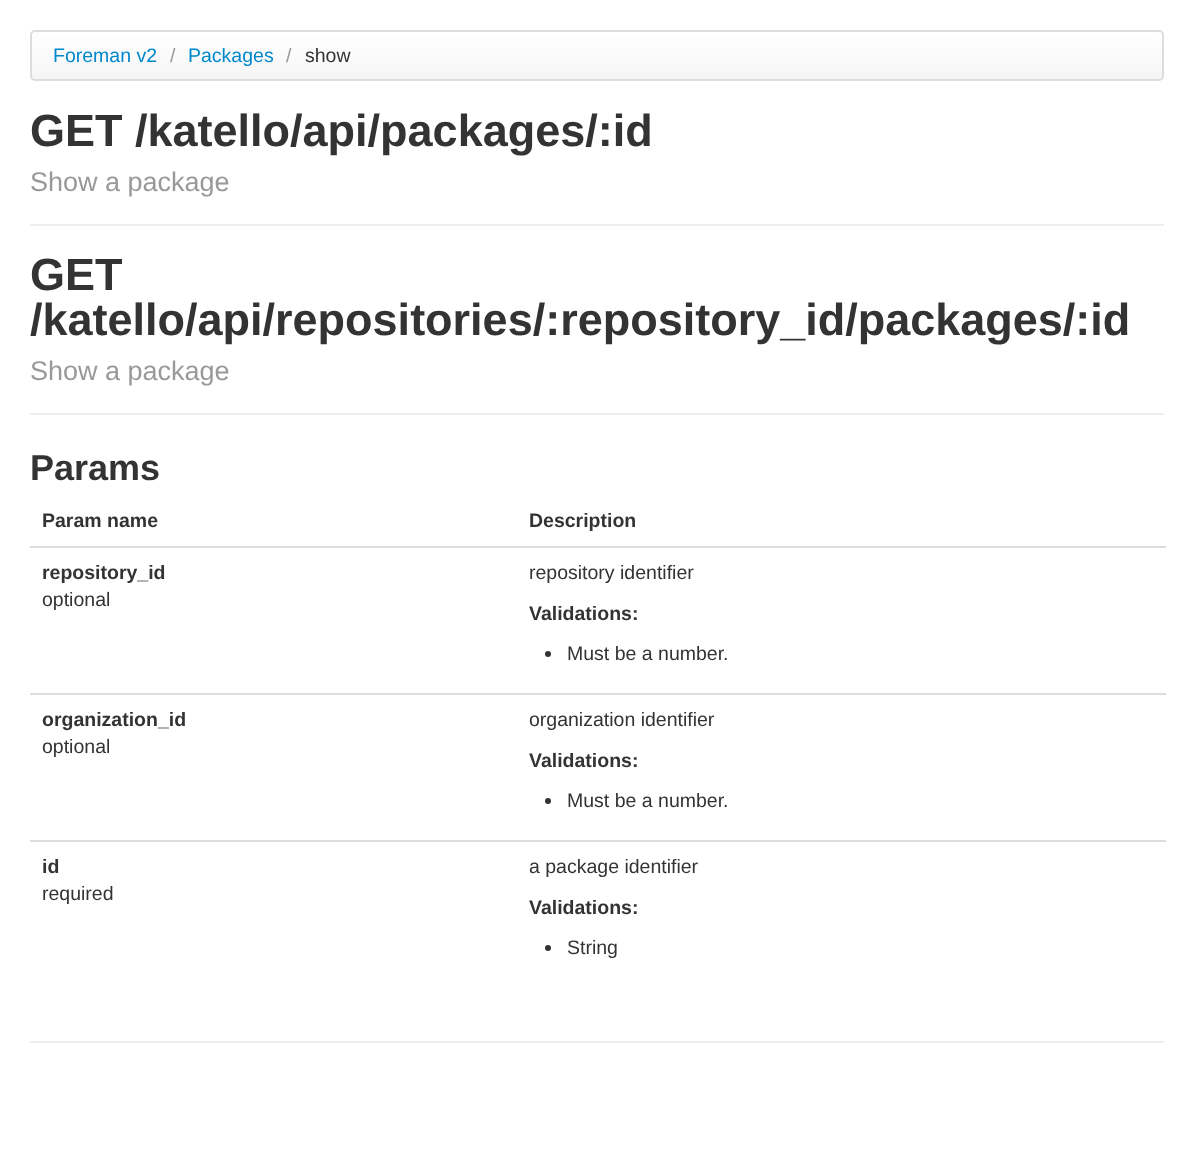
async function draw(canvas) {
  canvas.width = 1193
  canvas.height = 1156
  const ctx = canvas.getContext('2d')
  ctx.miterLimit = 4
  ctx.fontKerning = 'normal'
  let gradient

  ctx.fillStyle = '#fff'
  ctx.fillRect(0, 0, 1193, 1156)
  ctx.save()
  ctx.beginPath()
  ctx.roundRect(30, 30, 1134, 51, 5)
  ctx.clip()
  gradient = ctx.createLinearGradient(597, 31, 597, 80)
  gradient.addColorStop(0, '#fff')
  gradient.addColorStop(1, '#f5f5f5')
  ctx.fillStyle = gradient
  ctx.fillRect(30, 32, 1134, 48)
  ctx.restore()
  ctx.beginPath()
  ctx.moveTo(34, 33)
  ctx.lineTo(1160, 33)
  ctx.bezierCurveTo(1161, 33, 1162, 34, 1162, 36)
  ctx.lineTo(1162, 79)
  ctx.lineTo(1163, 77)
  ctx.lineTo(1163, 34)
  ctx.lineTo(1162, 33)
  ctx.lineTo(1160, 32)
  ctx.lineTo(35, 32)
  ctx.bezierCurveTo(33, 32, 32, 34, 32, 36)
  ctx.bezierCurveTo(32, 34, 33, 33, 34, 33)
  ctx.closePath()
  ctx.fill()
  ctx.beginPath()
  ctx.roundRect(31, 31, 1132, 49, 4)
  ctx.strokeStyle = '#ddd'
  ctx.lineWidth = 2
  ctx.stroke()
  ctx.font = '19.5px Liberation Sans'
  ctx.fillStyle = '#08c'
  ctx.fillText('Foreman v2', 53, 62)
  ctx.fillStyle = '#999'
  ctx.fillText('/', 170, 62)
  ctx.fillStyle = '#08c'
  ctx.fillText('Packages', 188, 62)
  ctx.fillStyle = '#999'
  ctx.fillText('/', 286, 62)
  ctx.fillStyle = '#333'
  ctx.fillText('show', 305, 62)
  ctx.fillStyle = '#eee'
  ctx.fillRect(30, 224, 1134, 2)
  ctx.font = 'bold 45px Liberation Sans'
  ctx.fillStyle = '#333'
  ctx.fillText('GET /katello/api/packages/:id', 30, 146)
  ctx.font = '27px Liberation Sans'
  ctx.fillStyle = '#999'
  ctx.fillText('Show a package', 30, 191)
  ctx.fillStyle = '#eee'
  ctx.fillRect(30, 413, 1134, 2)
  ctx.font = 'bold 45px Liberation Sans'
  ctx.fillStyle = '#333'
  ctx.fillText('GET', 30, 290)
  ctx.fillText('/katello/api/repositories/:repository_id/packages/:id', 30, 335)
  ctx.font = '27px Liberation Sans'
  ctx.fillStyle = '#999'
  ctx.fillText('Show a package', 30, 380)
  ctx.font = 'bold 36px Liberation Sans'
  ctx.fillStyle = '#333'
  ctx.fillText('Params', 30, 480)
  ctx.font = 'bold 19.5px Liberation Sans'
  ctx.fillText('Param name', 42, 527)
  ctx.fillText('Description', 529, 527)
  ctx.fillText('repository_id', 42, 579)
  ctx.font = '19.5px Liberation Sans'
  ctx.fillText('optional', 42, 606)
  ctx.fillStyle = '#ddd'
  ctx.fillRect(30, 546, 1136, 2)
  ctx.fillStyle = '#333'
  ctx.fillText('repository identifier', 529, 579)
  ctx.font = 'bold 19.5px Liberation Sans'
  ctx.fillText('Validations:', 529, 620)
  ctx.beginPath()
  ctx.arc(548, 654, 3, 0, 2 * Math.PI)
  ctx.fill()
  ctx.font = '19.5px Liberation Sans'
  ctx.fillText('Must be a number.', 567, 660)
  ctx.font = 'bold 19.5px Liberation Sans'
  ctx.fillText('organization_id', 42, 726)
  ctx.font = '19.5px Liberation Sans'
  ctx.fillText('optional', 42, 753)
  ctx.fillStyle = '#ddd'
  ctx.fillRect(30, 693, 1136, 2)
  ctx.fillStyle = '#333'
  ctx.fillText('organization identifier', 529, 726)
  ctx.font = 'bold 19.5px Liberation Sans'
  ctx.fillText('Validations:', 529, 767)
  ctx.beginPath()
  ctx.arc(548, 801, 3, 0, 2 * Math.PI)
  ctx.fill()
  ctx.font = '19.5px Liberation Sans'
  ctx.fillText('Must be a number.', 567, 807)
  ctx.font = 'bold 19.5px Liberation Sans'
  ctx.fillText('id', 42, 873)
  ctx.font = '19.5px Liberation Sans'
  ctx.fillText('required', 42, 900)
  ctx.fillStyle = '#ddd'
  ctx.fillRect(30, 840, 1136, 2)
  ctx.fillStyle = '#333'
  ctx.fillText('a package identifier', 529, 873)
  ctx.font = 'bold 19.5px Liberation Sans'
  ctx.fillText('Validations:', 529, 914)
  ctx.beginPath()
  ctx.arc(548, 948, 3, 0, 2 * Math.PI)
  ctx.fill()
  ctx.font = '19.5px Liberation Sans'
  ctx.fillText('String', 567, 954)
  ctx.fillStyle = '#eee'
  ctx.fillRect(30, 1041, 1134, 2)
}

draw(document.querySelector('canvas'))
